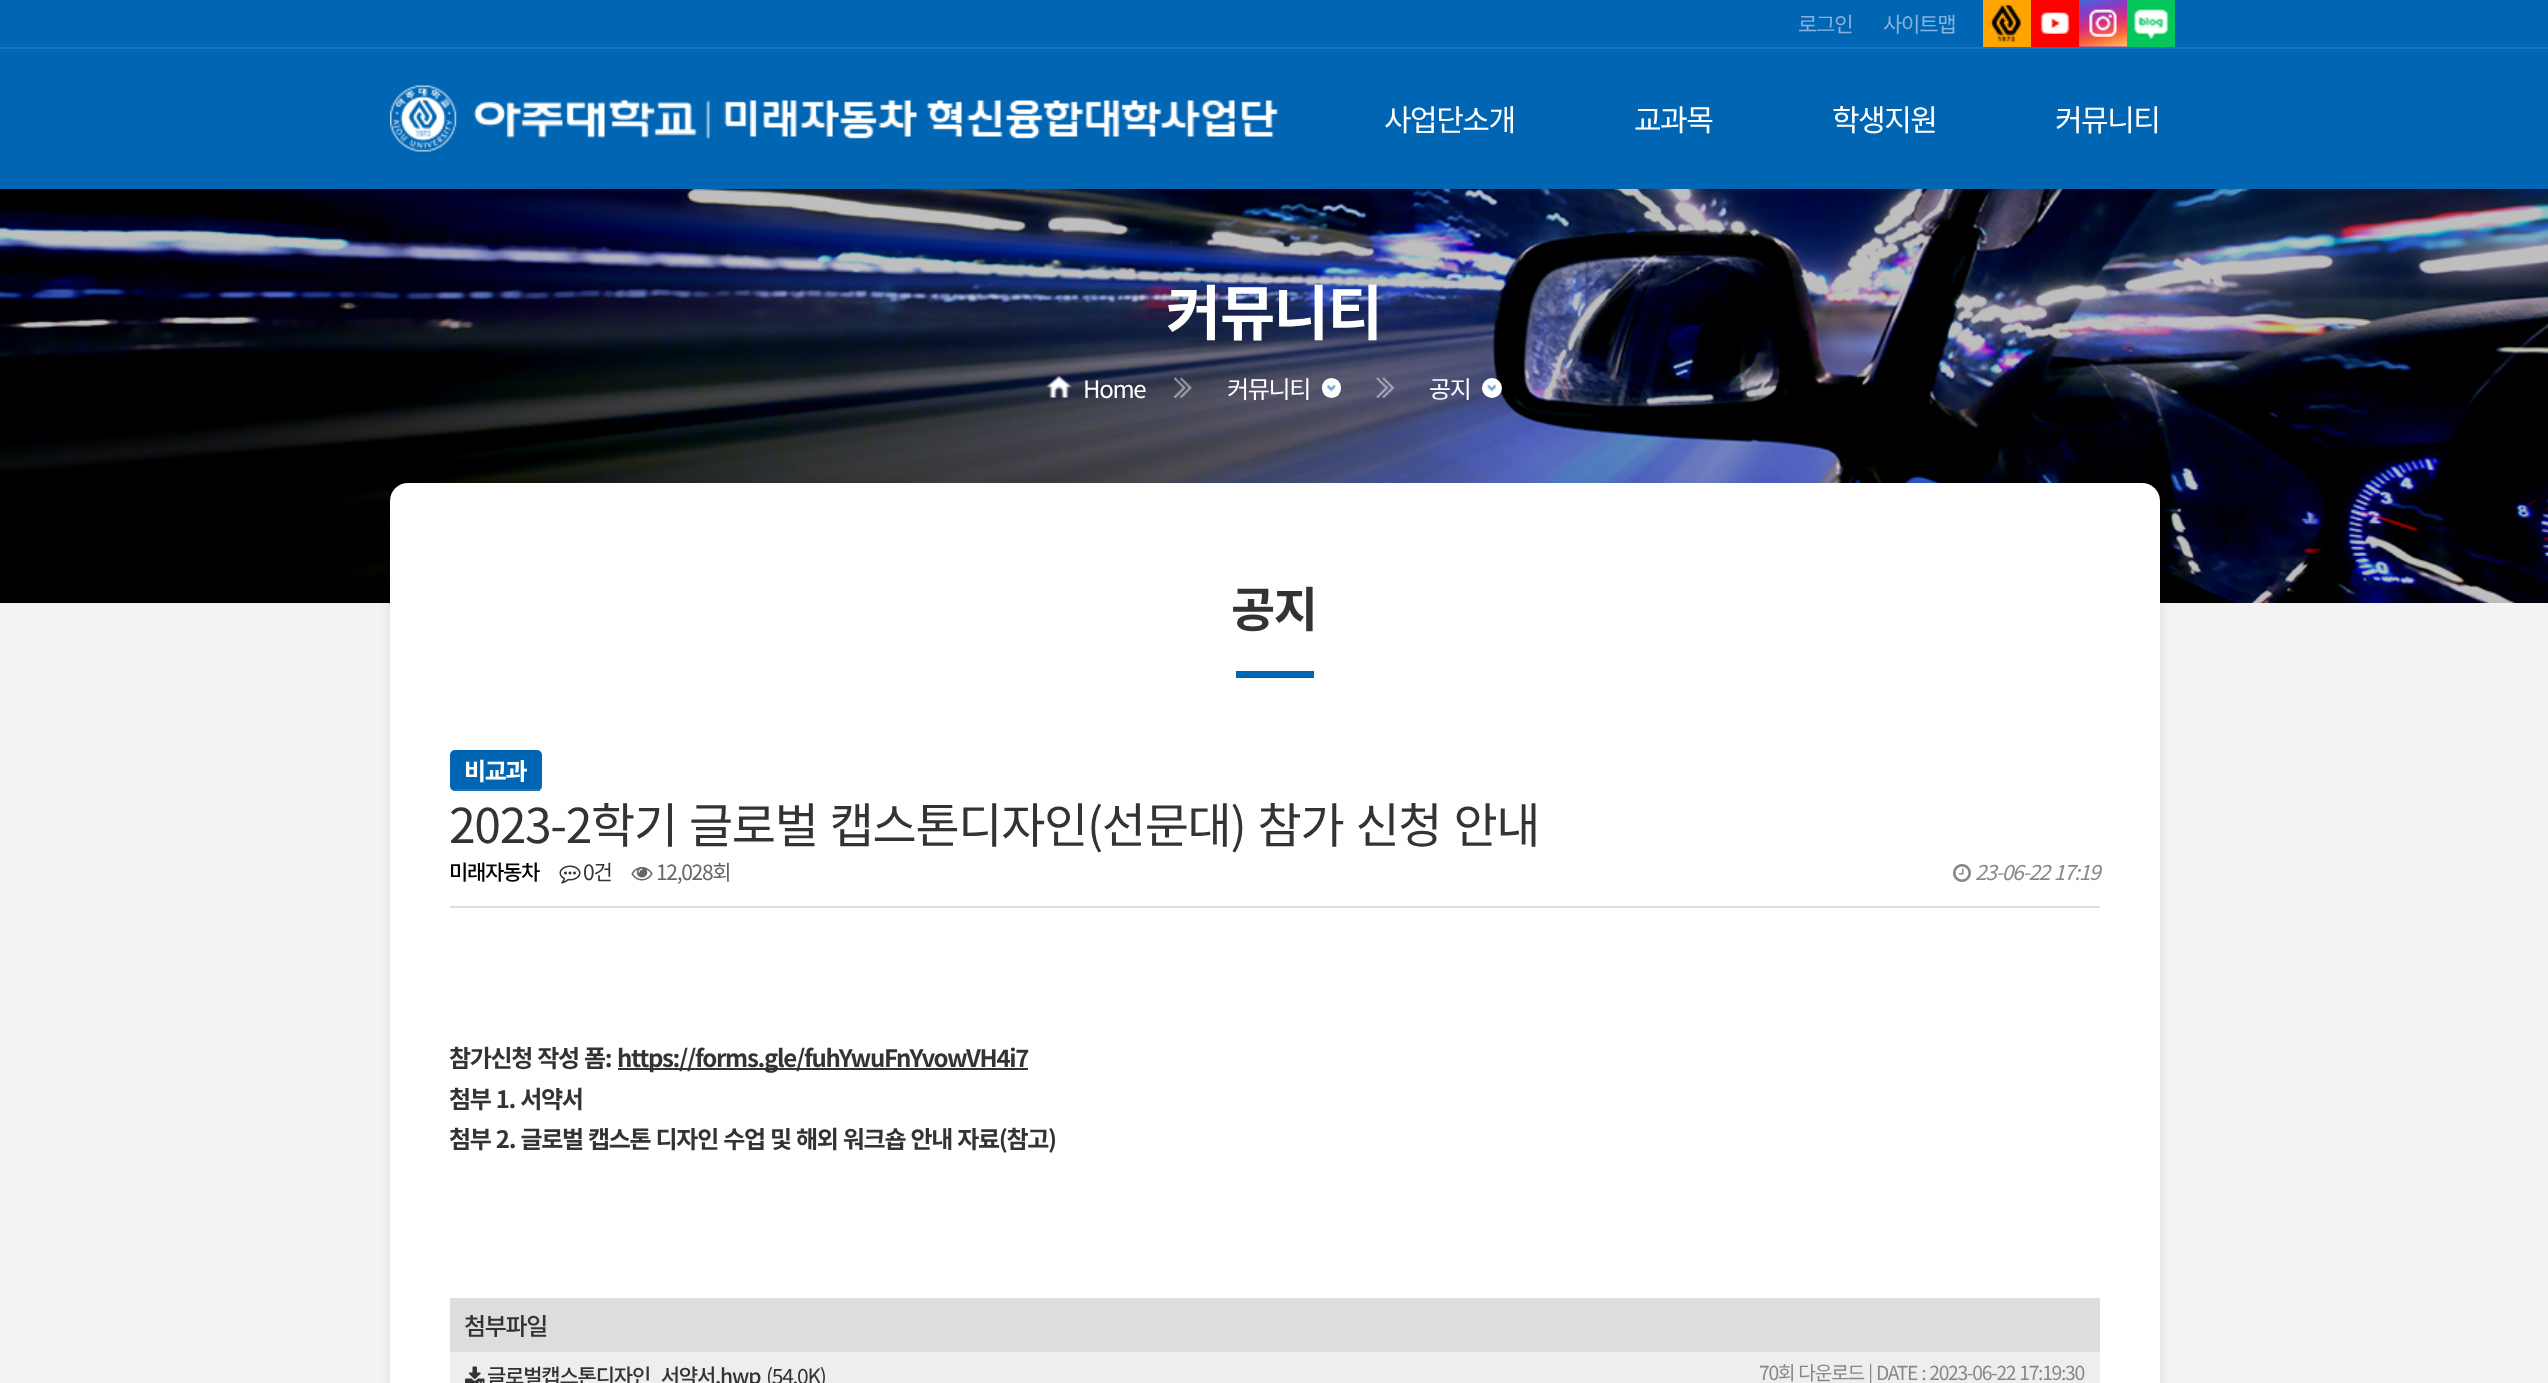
async function draw(canvas) {
  canvas.width = 2548
  canvas.height = 1383
  const ctx = canvas.getContext('2d')
  ctx.miterLimit = 4
  ctx.fontKerning = 'normal'
  async function loadImage(src) {
    const img = new Image()
    img.src = src
    await img.decode()
    return img
  }

  ctx.fillStyle = '#f3f3f3'
  ctx.fillRect(0, 0, 2548, 1383)
  ctx.fillStyle = '#0066b3'
  ctx.fillRect(0, 0, 2548, 47)
  ctx.letterSpacing = '-1.2px'
  ctx.font = '21px Noto Sans KR'
  ctx.fillStyle = '#88b2df'
  ctx.fillText('로그인', 1798, 32)
  ctx.fillText('사이트맵', 1883, 32)
  ctx.fillStyle = '#ffa400'
  ctx.fillRect(1983, 0, 48, 47)
  ctx.drawImage(await loadImage('image0.png'), 1991, 5, 30, 37)
  ctx.fillStyle = '#f00'
  ctx.fillRect(2031, 0, 48, 47)
  ctx.drawImage(await loadImage('image1.png'), 2040, 12, 30, 22)
  ctx.fillStyle = '#8a3bc2'
  ctx.fillRect(2079, 46, 48, 1)
  ctx.drawImage(await loadImage('image2.png'), 2079, 0, 48, 47)
  ctx.fillStyle = '#03c75a'
  ctx.fillRect(2127, 0, 48, 47)
  ctx.drawImage(await loadImage('image3.png'), 2133, 9, 36, 30)
  ctx.fillStyle = '#1a75bb'
  ctx.fillRect(0, 47, 2548, 2)
  ctx.fillStyle = '#0066b3'
  ctx.fillRect(0, 49, 2548, 140)
  ctx.drawImage(await loadImage('image4.png'), 390, 85, 888, 67)
  ctx.letterSpacing = '-1.5px'
  ctx.font = '30px Noto Sans KR'
  ctx.fillStyle = '#fff'
  ctx.fillText('사업단소개', 1384, 131)
  ctx.fillText('교과목', 1634, 131)
  ctx.fillText('학생지원', 1832, 131)
  ctx.fillText('커뮤니티', 2055, 131)
  ctx.drawImage(await loadImage('image5.png'), 0, 189, 2548, 414)
  ctx.letterSpacing = '-1.3px'
  ctx.font = 'bold 60px Noto Sans KR'
  ctx.fillText('커뮤니티', 1166, 335)
  ctx.drawImage(await loadImage('image6.png'), 1046, 376, 26, 22)
  ctx.font = '24px Noto Sans KR'
  ctx.fillText('Home', 1083, 398)
  ctx.drawImage(await loadImage('image7.png'), 1174, 377, 18, 21)
  ctx.fillText('커뮤니티', 1227, 398)
  ctx.beginPath()
  ctx.roundRect(1322, 378, 19, 20, 9.5)
  ctx.fill()
  ctx.drawImage(await loadImage('image8.png'), 1327, 384, 9, 8)
  ctx.drawImage(await loadImage('image9.png'), 1376, 377, 18, 21)
  ctx.fillText('공지', 1429, 398)
  ctx.beginPath()
  ctx.arc(1492, 388, 10, 0, 2 * Math.PI)
  ctx.fill()
  ctx.drawImage(await loadImage('image10.png'), 1487, 384, 9, 8)
  ctx.fillStyle = '#0000001a'
  ctx.filter = 'blur(6px)'
  ctx.beginPath()
  ctx.roundRect(390, 489, 1770, 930, 18)
  ctx.fill()
  ctx.filter = 'none'
  ctx.fillStyle = '#fff'
  ctx.beginPath()
  ctx.roundRect(390, 483, 1770, 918, 18)
  ctx.fill()
  ctx.font = 'bold 48px Noto Sans KR'
  ctx.fillStyle = '#333'
  ctx.fillText('공지', 1231, 627)
  ctx.fillStyle = '#0066b3'
  ctx.fillRect(1236, 671, 78, 7)
  ctx.beginPath()
  ctx.roundRect(450, 750, 92, 41, 5)
  ctx.fill()
  ctx.fillStyle = '#1977b5'
  ctx.fillRect(453, 789, 87, 2)
  ctx.font = 'bold 24px Noto Sans KR'
  ctx.fillStyle = '#fff'
  ctx.fillText('비교과', 464, 780)
  ctx.wordSpacing = '2.75px'
  ctx.font = '48px Noto Sans KR'
  ctx.fillStyle = '#333'
  ctx.fillText('2023-2학기 글로벌 캡스톤디자인(선문대) 참가 신청 안내', 449, 843)
  ctx.fillStyle = '#ddd'
  ctx.fillRect(450, 906, 1650, 2)
  ctx.wordSpacing = '0px'
  ctx.font = '500 21px Noto Sans KR'
  ctx.fillStyle = '#000'
  ctx.fillText('미래자동차', 449, 880)
  ctx.drawImage(await loadImage('image11.png'), 559, 865, 22, 19)
  ctx.letterSpacing = '-1.2px'
  ctx.font = '21px Noto Sans KR'
  ctx.fillStyle = '#333'
  ctx.fillText('0건', 583, 880)
  ctx.drawImage(await loadImage('image12.png'), 631, 867, 22, 14)
  ctx.letterSpacing = '-1.3px'
  ctx.fillStyle = '#666'
  ctx.fillText('12,028회', 656, 880)
  ctx.drawImage(await loadImage('image13.png'), 1953, 864, 18, 18)
  ctx.wordSpacing = '1px'
  ctx.font = 'italic 21px Noto Sans KR'
  ctx.fillStyle = '#888'
  ctx.fillText('23-06-22 17:19', 1975, 880)
  ctx.font = 'bold 24px Noto Sans KR'
  ctx.fillStyle = '#333'
  ctx.fillText('참가신청 작성 폼:', 449, 1067)
  ctx.fillRect(618, 1068, 410, 2)
  ctx.wordSpacing = '0px'
  ctx.fillText('https://forms.gle/fuhYwuFnYvowVH4i7', 617, 1067)
  ctx.wordSpacing = '1px'
  ctx.fillText('첨부 1. 서약서', 449, 1108)
  ctx.wordSpacing = '1.1px'
  ctx.fillText('첨부 2. 글로벌 캡스톤 디자인 수업 및 해외 워크숍 안내 자료(참고)', 449, 1148)
  ctx.fillStyle = '#ddd'
  ctx.fillRect(450, 1298, 1650, 54)
  ctx.wordSpacing = '0px'
  ctx.font = '500 24px Noto Sans KR'
  ctx.fillStyle = '#333'
  ctx.fillText('첨부파일', 464, 1335)
  ctx.fillStyle = '#eee'
  ctx.fillRect(450, 1352, 1650, 31)
  ctx.drawImage(await loadImage('image14.png'), 465, 1366, 20, 17)
  ctx.letterSpacing = '-1.2px'
  ctx.font = '500 21px Noto Sans KR'
  ctx.fillStyle = '#333'
  ctx.fillText('글로벌캡스톤디자인_서약서.hwp', 487, 1384)
  ctx.letterSpacing = '-1.3px'
  ctx.font = '21px Noto Sans KR'
  ctx.fillText('(54.0K)', 766, 1384)
  ctx.wordSpacing = '1px'
  ctx.font = '19.3px Noto Sans KR'
  ctx.fillStyle = '#888'
  ctx.fillText('70회 다운로드 | DATE : 2023-06-22 17:19:30', 1759, 1380)
}

draw(document.querySelector('canvas'))
